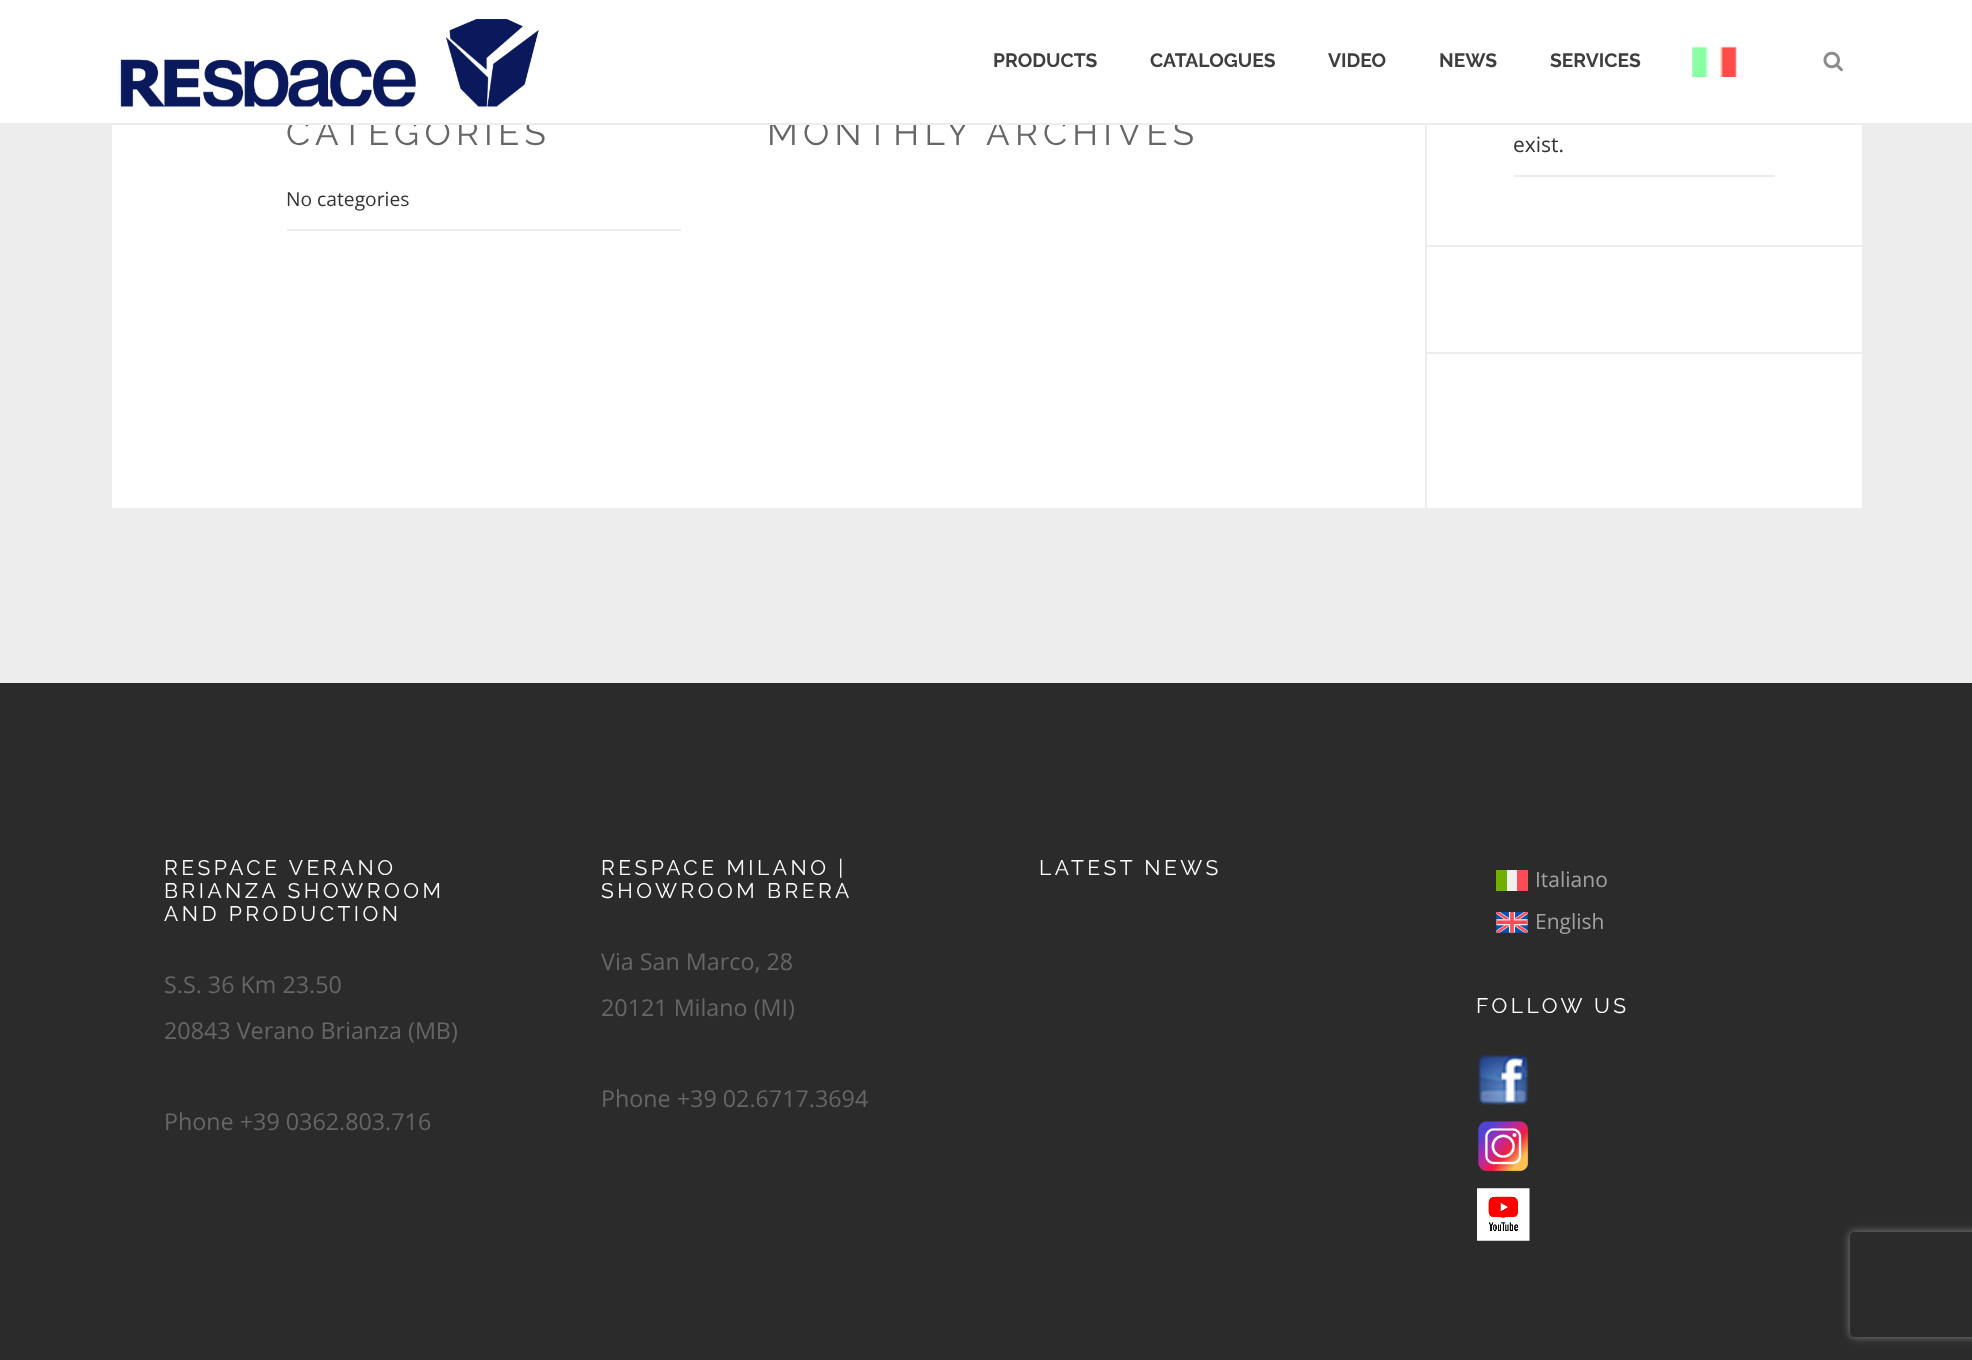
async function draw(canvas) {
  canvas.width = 1972
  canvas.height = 1360
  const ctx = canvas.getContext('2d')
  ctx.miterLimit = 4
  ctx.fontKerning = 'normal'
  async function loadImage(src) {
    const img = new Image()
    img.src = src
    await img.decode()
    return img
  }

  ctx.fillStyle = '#ededed'
  ctx.fillRect(0, 0, 1972, 1360)
  ctx.fillStyle = '#fff'
  ctx.fillRect(112, 125, 1750, 383)
  ctx.letterSpacing = '5.25px'
  ctx.font = '35px Raleway'
  ctx.fillStyle = '#666'
  ctx.fillText('CATEGORIES', 286, 145)
  ctx.fillText('MONTHLY ARCHIVES', 767, 145)
  ctx.fillStyle = '#fff'
  ctx.fillRect(0, 0, 1972, 123)
  ctx.fillStyle = '#ededed'
  ctx.fillRect(290, 123, 902, 2)
  ctx.drawImage(await loadImage('image0.png'), 120, 19, 419, 89)
  ctx.letterSpacing = '0px'
  ctx.font = 'bold 19.25px Raleway'
  ctx.fillStyle = '#3e3e3e'
  ctx.fillText('PRODUCTS', 993, 67)
  ctx.fillText('CATALOGUES', 1150, 67)
  ctx.fillText('VIDEO', 1328, 67)
  ctx.fillText('NEWS', 1439, 67)
  ctx.fillText('SERVICES', 1550, 67)
  ctx.drawImage(await loadImage('image1.png'), 1692, 46, 45, 31)
  ctx.drawImage(await loadImage('image2.png'), 1823, 51, 20, 21)
  ctx.fillStyle = '#ededed'
  ctx.fillRect(287, 229, 394, 2)
  ctx.font = '19.25px Open Sans'
  ctx.fillStyle = '#333'
  ctx.fillText('No categories', 286, 206)
  ctx.fillStyle = '#ededed'
  ctx.fillRect(1425, 125, 2, 383)
  ctx.fillRect(1426, 245, 436, 2)
  ctx.fillRect(1514, 175, 261, 2)
  ctx.font = '21px Open Sans'
  ctx.fillStyle = '#333'
  ctx.fillText('exist.', 1513, 152)
  ctx.fillStyle = '#ededed'
  ctx.fillRect(1426, 352, 436, 2)
  ctx.fillStyle = '#2b2b2b'
  ctx.fillRect(0, 683, 1972, 677)
  ctx.letterSpacing = '3.5px'
  ctx.font = '21px Raleway'
  ctx.fillStyle = '#fff'
  ctx.fillText('RESPACE VERANO', 164, 875)
  ctx.fillText('BRIANZA SHOWROOM', 164, 898)
  ctx.fillText('AND PRODUCTION', 164, 921)
  ctx.letterSpacing = '0px'
  ctx.font = '23.3px Open Sans'
  ctx.fillStyle = '#666'
  ctx.fillText('S.S. 36 Km 23.50', 164, 993)
  ctx.fillText('20843 Verano Brianza (MB)', 164, 1039)
  ctx.fillText('Phone +39 0362.803.716', 164, 1130)
  ctx.letterSpacing = '3.5px'
  ctx.font = '21px Raleway'
  ctx.fillStyle = '#fff'
  ctx.fillText('RESPACE MILANO |', 601, 875)
  ctx.fillText('SHOWROOM BRERA', 601, 898)
  ctx.letterSpacing = '0px'
  ctx.font = '23.3px Open Sans'
  ctx.fillStyle = '#666'
  ctx.fillText('Via San Marco, 28', 601, 970)
  ctx.fillText('20121 Milano (MI)', 601, 1016)
  ctx.fillText('Phone +39 02.6717.3694', 601, 1107)
  ctx.letterSpacing = '3.5px'
  ctx.font = '21px Raleway'
  ctx.fillStyle = '#fff'
  ctx.fillText('LATEST NEWS', 1039, 875)
  ctx.fillStyle = '#73af00'
  ctx.fillRect(1496, 870, 11, 21)
  ctx.fillStyle = '#f0f0f0'
  ctx.fillRect(1507, 870, 10, 21)
  ctx.fillStyle = '#ff4b55'
  ctx.fillRect(1517, 870, 11, 21)
  ctx.letterSpacing = '0px'
  ctx.font = '21px Open Sans'
  ctx.fillStyle = '#a2a2a2'
  ctx.fillText('Italiano', 1535, 887)
  ctx.drawImage(await loadImage('image3.png'), 1496, 912, 32, 21)
  ctx.fillText('English', 1535, 929)
  ctx.letterSpacing = '3.5px'
  ctx.font = '21px Raleway'
  ctx.fillStyle = '#fff'
  ctx.fillText('FOLLOW US', 1476, 1013)
  ctx.drawImage(await loadImage('image4.png'), 1478, 1055, 51, 50)
  ctx.drawImage(await loadImage('image5.png'), 1478, 1121, 51, 51)
  ctx.drawImage(await loadImage('image6.png'), 1477, 1188, 53, 53)
  ctx.save()
  ctx.beginPath()
  ctx.moveTo(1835, 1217)
  ctx.lineTo(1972, 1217)
  ctx.lineTo(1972, 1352)
  ctx.lineTo(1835, 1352)
  ctx.closePath()
  ctx.moveTo(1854, 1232)
  ctx.lineTo(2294, 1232)
  ctx.bezierCurveTo(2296, 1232, 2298, 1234, 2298, 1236)
  ctx.lineTo(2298, 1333)
  ctx.bezierCurveTo(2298, 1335, 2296, 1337, 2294, 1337)
  ctx.lineTo(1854, 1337)
  ctx.bezierCurveTo(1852, 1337, 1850, 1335, 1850, 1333)
  ctx.lineTo(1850, 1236)
  ctx.bezierCurveTo(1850, 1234, 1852, 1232, 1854, 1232)
  ctx.closePath()
  ctx.clip('evenodd')
  ctx.fillStyle = '#808080'
  ctx.filter = 'blur(4.5px)'
  ctx.beginPath()
  ctx.roundRect(1850, 1232, 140, 105, 4)
  ctx.fill()
  ctx.filter = 'none'
  ctx.restore()
}

draw(document.querySelector('canvas'))
